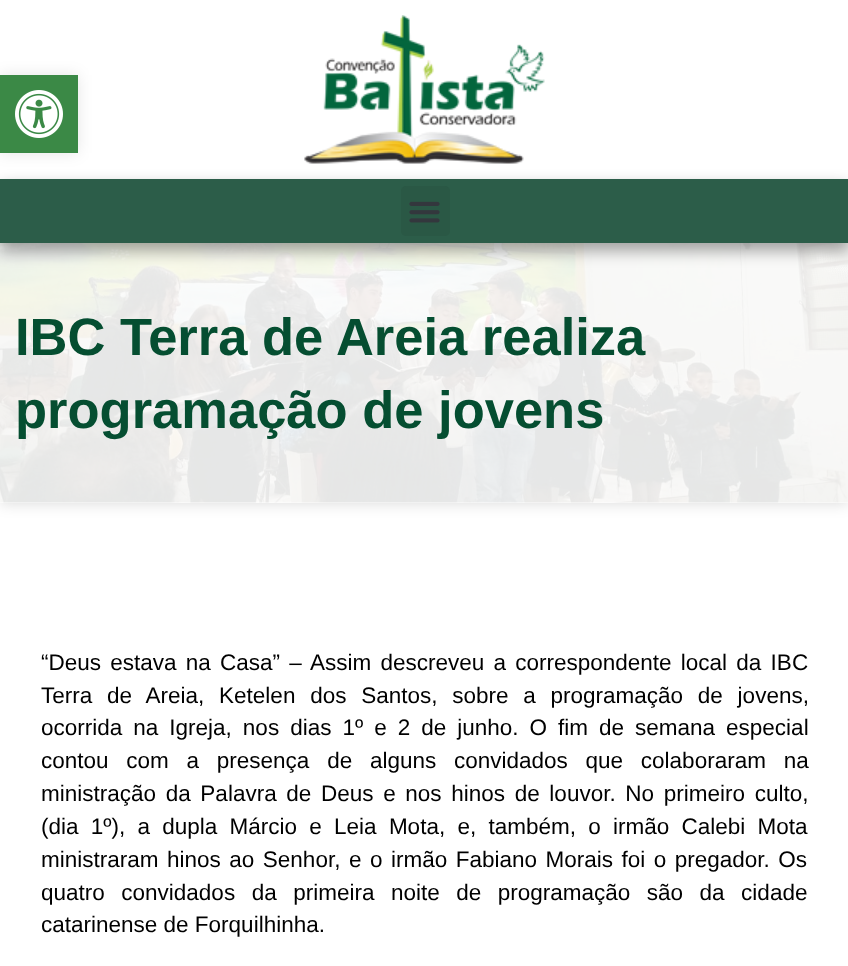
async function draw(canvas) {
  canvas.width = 848
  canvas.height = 966
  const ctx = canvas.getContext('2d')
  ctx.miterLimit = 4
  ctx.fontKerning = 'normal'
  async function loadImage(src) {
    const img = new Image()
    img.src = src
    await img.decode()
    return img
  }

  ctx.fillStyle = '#fff'
  ctx.fillRect(0, 0, 848, 966)
  ctx.fillStyle = '#0000001a'
  ctx.filter = 'blur(7.5px)'
  ctx.beginPath()
  ctx.rect(0, 75, 78, 78)
  ctx.fill()
  ctx.filter = 'none'
  ctx.fillStyle = '#3b8946'
  ctx.fillRect(0, 75, 78, 78)
  ctx.drawImage(await loadImage('image0.png'), 15, 90, 48, 48)
  ctx.drawImage(await loadImage('image1.png'), 304, 15, 241, 149)
  ctx.fillStyle = '#00000026'
  ctx.filter = 'blur(7.5px)'
  ctx.beginPath()
  ctx.rect(0, 243, 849, 260)
  ctx.fill()
  ctx.filter = 'none'
  ctx.drawImage(await loadImage('image3.png'), 0, 243, 848, 260)
  ctx.fillStyle = '#ffffffe6'
  ctx.fillRect(0, 243, 848, 260)
  ctx.fillStyle = '#00000059'
  ctx.filter = 'blur(7.5px)'
  ctx.beginPath()
  ctx.rect(0, 186, 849, 65)
  ctx.fill()
  ctx.filter = 'none'
  ctx.fillStyle = '#2c5d49'
  ctx.fillRect(0, 179, 848, 64)
  ctx.fillStyle = '#2a5845'
  ctx.beginPath()
  ctx.roundRect(401, 186, 49, 50, 5)
  ctx.fill()
  ctx.drawImage(await loadImage('image2.png'), 409, 201, 31, 22)
  ctx.font = 'bold 52.5px Liberation Sans'
  ctx.fillStyle = '#054e31'
  ctx.fillText('IBC Terra de Areia realiza', 15, 355)
  ctx.fillText('programação de jovens', 15, 428)
  ctx.wordSpacing = '3px'
  ctx.font = '22.5px Liberation Sans'
  ctx.fillStyle = '#000'
  ctx.fillText('“Deus estava na Casa” – Assim descreveu a correspondente local da IBC', 41, 670)
  ctx.wordSpacing = '8.5px'
  ctx.fillText('Terra de Areia, Ketelen dos Santos, sobre a programação de jovens,', 41, 703)
  ctx.wordSpacing = '4.75px'
  ctx.fillText('ocorrida na Igreja, nos dias 1º e 2 de junho. O fim de semana especial', 41, 735)
  ctx.wordSpacing = '11.5px'
  ctx.fillText('contou com a presença de alguns convidados que colaboraram na', 41, 768)
  ctx.wordSpacing = '3.4px'
  ctx.fillText('ministração da Palavra de Deus e nos hinos de louvor. No primeiro culto,', 41, 801)
  ctx.wordSpacing = '6px'
  ctx.fillText('(dia 1º), a dupla Márcio e Leia Mota, e, também, o irmão Calebi Mota', 41, 834)
  ctx.wordSpacing = '2.25px'
  ctx.fillText('ministraram hinos ao Senhor, e o irmão Fabiano Morais foi o pregador. Os', 41, 867)
  ctx.wordSpacing = '10.25px'
  ctx.fillText('quatro convidados da primeira noite de programação são da cidade', 41, 900)
  ctx.wordSpacing = '0px'
  ctx.fillText('catarinense de Forquilhinha.', 41, 932)
}

draw(document.querySelector('canvas'))
